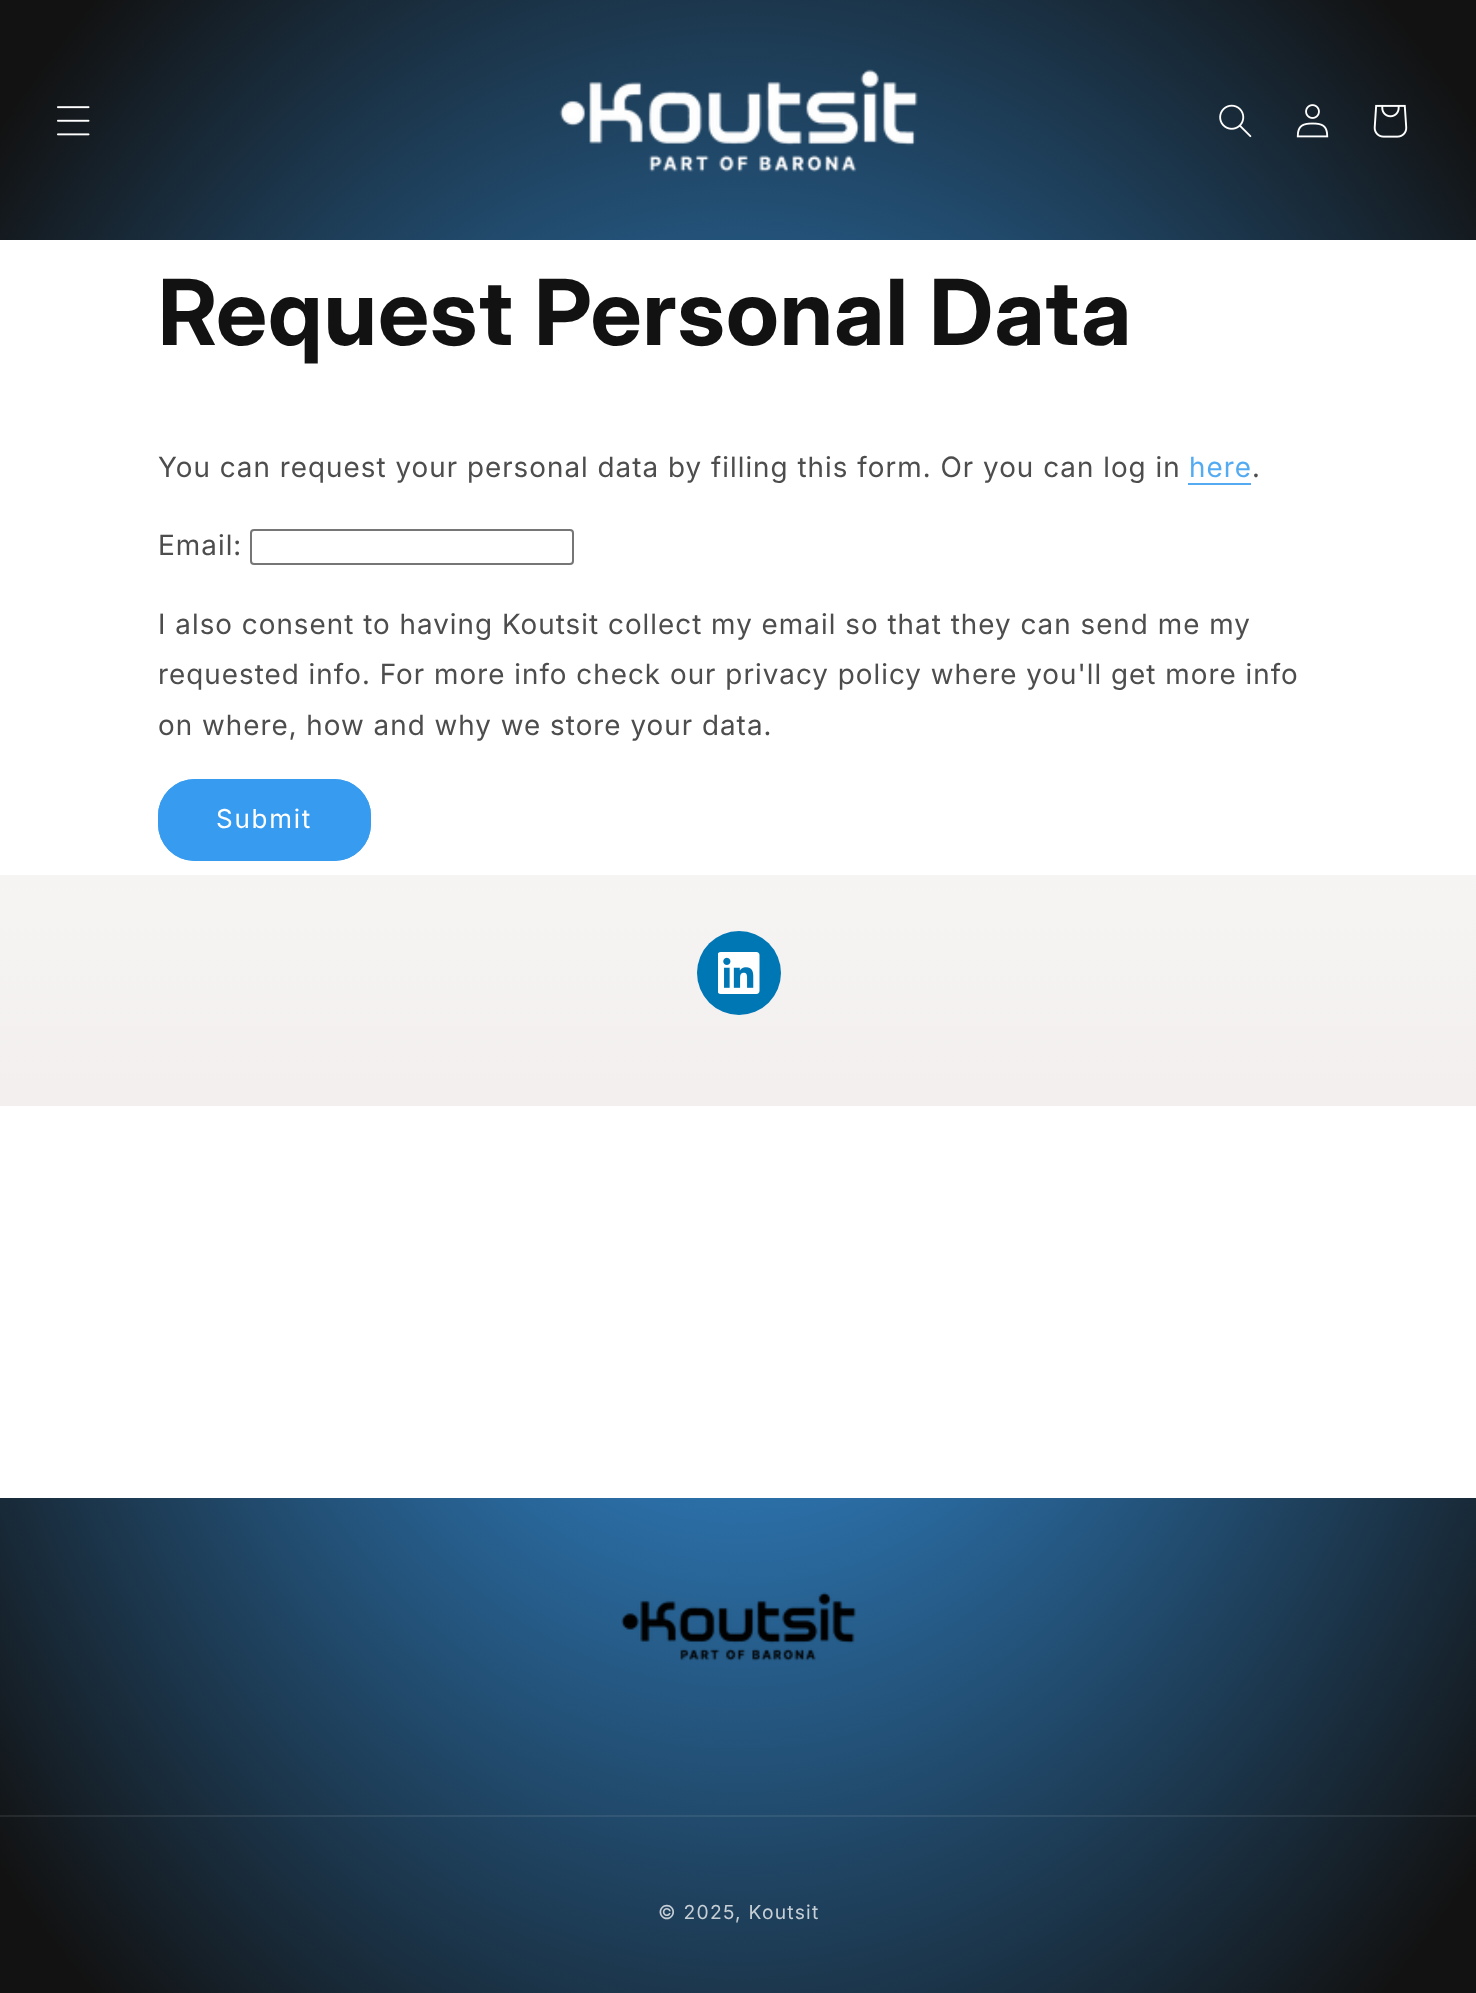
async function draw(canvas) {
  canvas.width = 1476
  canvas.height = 1993
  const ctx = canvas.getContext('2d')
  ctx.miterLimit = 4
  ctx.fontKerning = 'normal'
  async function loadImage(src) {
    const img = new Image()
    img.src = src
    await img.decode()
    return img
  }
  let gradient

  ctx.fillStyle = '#fff'
  ctx.fillRect(0, 0, 1476, 1993)
  gradient = ctx.createRadialGradient(739, 738.73, 0, 739, 738.73, 1044)
  gradient.addColorStop(0.07, '#379cf0')
  gradient.addColorStop(0.94, '#121212')
  ctx.fillStyle = gradient
  ctx.beginPath()
  ctx.rect(0, 0, 1476, 240)
  ctx.save()
  ctx.clip()
  ctx.scale(1, 1409 / 1044)
  ctx.fillRect(0, 0, 1476, 1477)
  ctx.restore()
  ctx.drawImage(await loadImage('image0.png'), 57, 106, 33, 30)
  ctx.drawImage(await loadImage('image1.png'), 559, 69, 359, 103)
  ctx.drawImage(await loadImage('image2.png'), 1219, 104, 33, 34)
  ctx.drawImage(await loadImage('image3.png'), 1296, 104, 33, 34)
  ctx.drawImage(await loadImage('image4.png'), 1373, 104, 35, 34)
  ctx.letterSpacing = '1.05px'
  ctx.font = 'bold 91px Inter'
  ctx.fillStyle = '#121212'
  ctx.fillText('Request Personal Data', 158, 345)
  ctx.font = '28px Inter'
  ctx.fillStyle = '#4d4d4d'
  ctx.fillText('You can request your personal data by filling this form. Or you can log in', 158, 477)
  ctx.fillStyle = '#55abf2'
  ctx.fillText('here', 1189, 477)
  ctx.fillRect(1188, 483, 63, 2)
  ctx.fillStyle = '#4d4d4d'
  ctx.fillText('.', 1252, 477)
  ctx.fillText('Email:', 158, 555)
  ctx.beginPath()
  ctx.roundRect(251, 530, 322, 34, 3)
  ctx.strokeStyle = '#767676'
  ctx.lineWidth = 2
  ctx.stroke()
  ctx.fillText('I also consent to having Koutsit collect my email so that they can send me my', 158, 634)
  ctx.fillText('requested info. For more info check our privacy policy where you\'ll get more info', 158, 684)
  ctx.fillText('on where, how and why we store your data.', 158, 735)
  ctx.fillStyle = '#379cf0'
  ctx.beginPath()
  ctx.roundRect(158, 779, 213, 82, 37)
  ctx.fill()
  ctx.beginPath()
  ctx.roundRect(159, 780, 211, 80, 36)
  ctx.strokeStyle = '#379cf0'
  ctx.stroke()
  ctx.letterSpacing = '1.75px'
  ctx.font = '26px "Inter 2"'
  ctx.fillStyle = '#fff'
  ctx.fillText('Submit', 216, 828)
  gradient = ctx.createLinearGradient(739, 1993, 739, 0)
  gradient.addColorStop(0.05, '#e6dede')
  gradient.addColorStop(0.83, '#fff')
  ctx.fillStyle = gradient
  ctx.fillRect(0, 875, 1476, 231)
  ctx.fillStyle = '#0077b5'
  ctx.beginPath()
  ctx.arc(739, 973, 42, 0, 2 * Math.PI)
  ctx.fill()
  ctx.drawImage(await loadImage('image5.png'), 718, 952, 42, 42)
  gradient = ctx.createRadialGradient(739, 738.73, 0, 739, 738.73, 1044)
  gradient.addColorStop(0.07, '#379cf0')
  gradient.addColorStop(0.94, '#121212')
  ctx.fillStyle = gradient
  ctx.beginPath()
  ctx.rect(0, 1498, 1476, 495)
  ctx.save()
  ctx.clip()
  ctx.scale(1, 1409 / 1044)
  ctx.fillRect(0, 0, 1476, 1477)
  ctx.restore()
  gradient = ctx.createRadialGradient(739, 738.73, 0, 739, 738.73, 1044)
  gradient.addColorStop(0.07, '#47a4f1')
  gradient.addColorStop(0.94, '#252525')
  ctx.fillStyle = gradient
  ctx.beginPath()
  ctx.rect(0, 1815, 1476, 2)
  ctx.save()
  ctx.clip()
  ctx.scale(1, 1409 / 1044)
  ctx.fillRect(0, 0, 1476, 1477)
  ctx.restore()
  ctx.drawImage(await loadImage('image6.png'), 621, 1592, 235, 69)
  ctx.letterSpacing = '1.25px'
  ctx.font = '19.25px "Inter 2"'
  ctx.fillStyle = '#c7cfd6'
  ctx.fillText('© 2025, Koutsit', 658, 1919)
}

draw(document.querySelector('canvas'))
